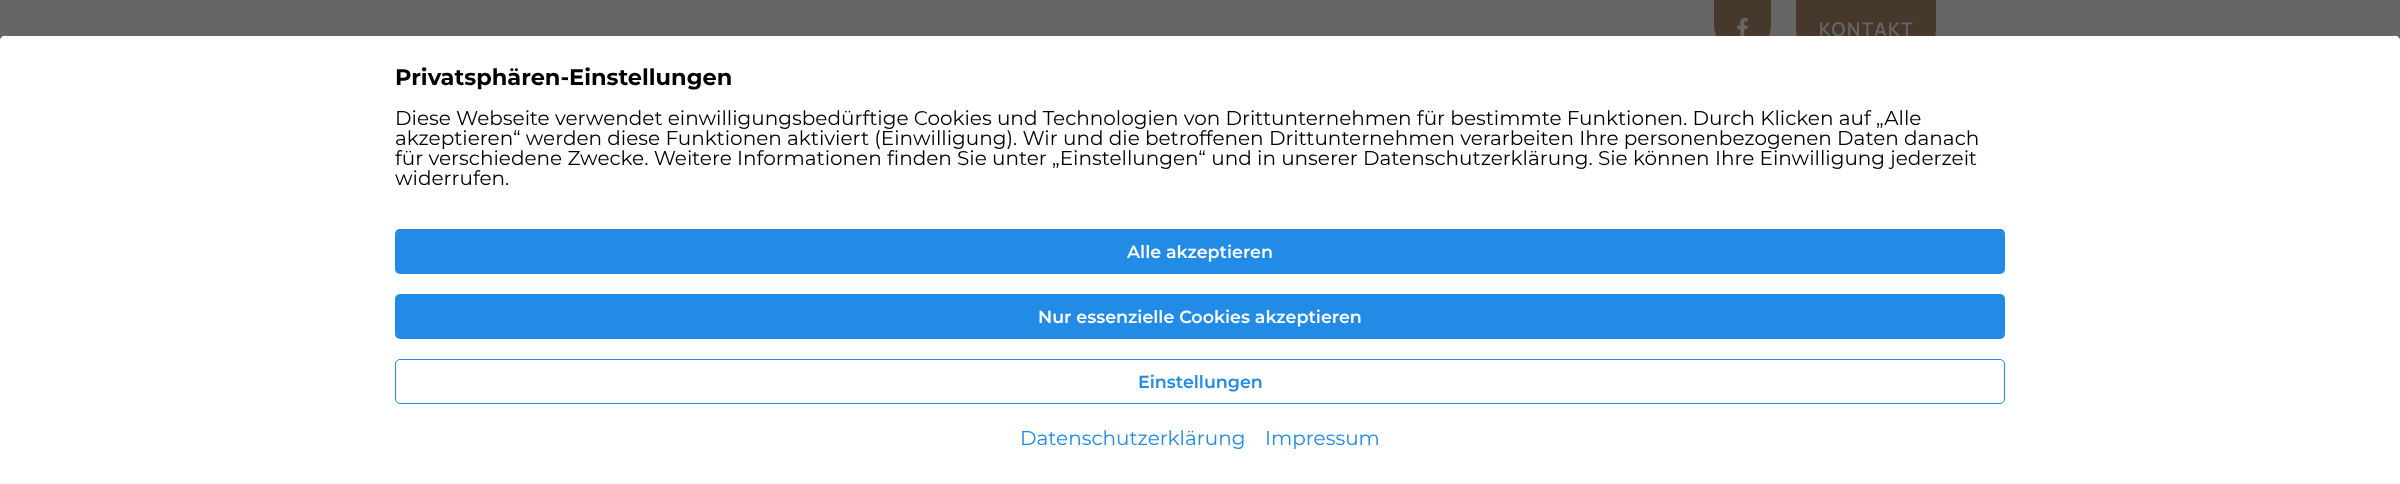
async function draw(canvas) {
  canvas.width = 2400
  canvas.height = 484
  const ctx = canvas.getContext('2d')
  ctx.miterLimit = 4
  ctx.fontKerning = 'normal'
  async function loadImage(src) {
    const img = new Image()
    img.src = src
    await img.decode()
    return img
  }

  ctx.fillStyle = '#666'
  ctx.fillRect(0, 0, 2400, 484)
  ctx.fillStyle = '#46392c'
  ctx.beginPath()
  ctx.roundRect(1714, 0, 57, 54, [0, 0, 28.5, 28.5])
  ctx.fill()
  ctx.drawImage(await loadImage('image0.png'), 1737, 17, 11, 19)
  ctx.beginPath()
  ctx.roundRect(1796, 0, 140, 60, [0, 0, 31, 31])
  ctx.fill()
  ctx.letterSpacing = '1.5px'
  ctx.font = '200 18.75px Manrope'
  ctx.fillStyle = '#666'
  ctx.fillText('KONTAKT', 1819, 36)
  ctx.fillStyle = '#fff'
  ctx.beginPath()
  ctx.moveTo(5, 36)
  ctx.lineTo(2395, 36)
  ctx.bezierCurveTo(2398, 36, 2400, 38, 2400, 41)
  ctx.lineTo(2400, 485)
  ctx.lineTo(0, 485)
  ctx.lineTo(0, 41)
  ctx.bezierCurveTo(0, 38, 2, 36, 5, 36)
  ctx.closePath()
  ctx.fill()
  ctx.beginPath()
  ctx.roundRect(0, 36, 2400, 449, 5)
  ctx.fill()
  ctx.letterSpacing = '0px'
  ctx.font = 'bold 22.5px Montserrat'
  ctx.fillStyle = '#000'
  ctx.fillText('Privatsphären-Einstellungen', 395, 85)
  ctx.font = '20px Montserrat'
  ctx.fillText('Diese Webseite verwendet einwilligungsbedürftige Cookies und Technologien von Drittunternehmen für bestimmte Funktionen. Durch Klicken auf „Alle', 395, 125)
  ctx.fillText('akzeptieren“ werden diese Funktionen aktiviert (Einwilligung). Wir und die betroffenen Drittunternehmen verarbeiten Ihre personenbezogenen Daten danach', 395, 145)
  ctx.fillText('für verschiedene Zwecke. Weitere Informationen finden Sie unter „Einstellungen“ und in unserer Datenschutzerklärung. Sie können Ihre Einwilligung jederzeit', 395, 165)
  ctx.fillText('widerrufen.', 395, 185)
  ctx.fillStyle = '#228be6'
  ctx.beginPath()
  ctx.roundRect(395, 229, 1610, 45, 5)
  ctx.fill()
  ctx.font = '600 17.5px Montserrat'
  ctx.fillStyle = '#fff'
  ctx.fillText('Alle akzeptieren', 1127, 258)
  ctx.fillStyle = '#228be6'
  ctx.beginPath()
  ctx.roundRect(395, 294, 1610, 45, 5)
  ctx.fill()
  ctx.fillStyle = '#fff'
  ctx.fillText('Nur essenzielle Cookies akzeptieren', 1038, 323)
  ctx.beginPath()
  ctx.roundRect(395.5, 359.5, 1609, 44, 4.5)
  ctx.strokeStyle = '#228be6'
  ctx.stroke()
  ctx.fillStyle = '#228be6'
  ctx.fillText('Einstellungen', 1138, 388)
  ctx.font = '20px Montserrat'
  ctx.fillText('Datenschutzerklärung', 1020, 445)
  ctx.fillText('Impressum', 1265, 445)
}

draw(document.querySelector('canvas'))
